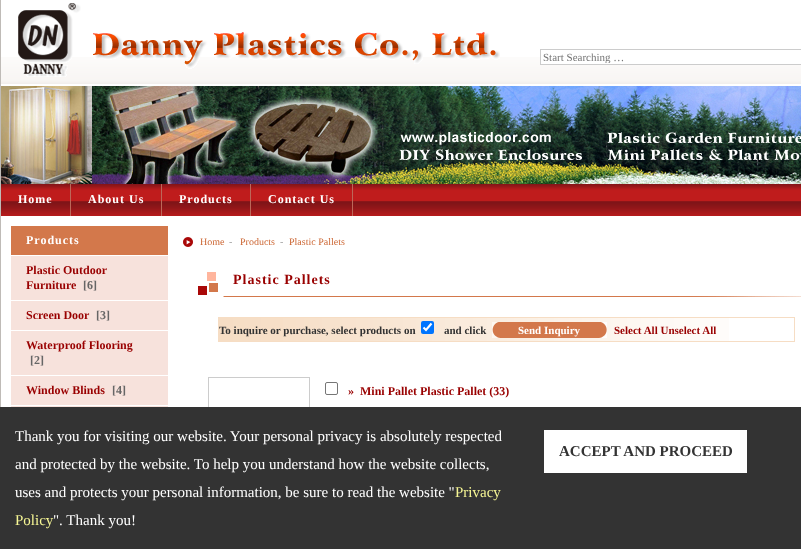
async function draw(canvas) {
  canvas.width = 801
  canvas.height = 549
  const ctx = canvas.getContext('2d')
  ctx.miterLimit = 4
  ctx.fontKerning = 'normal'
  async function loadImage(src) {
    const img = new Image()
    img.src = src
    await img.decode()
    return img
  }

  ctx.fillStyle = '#fff'
  ctx.fillRect(0, 0, 801, 549)
  ctx.fillStyle = '#bfbbb7'
  ctx.fillRect(0, 0, 1, 407)
  ctx.drawImage(await loadImage('image0.png'), 1, 57, 800, 27)
  ctx.drawImage(await loadImage('image1.png'), 18, 3, 482, 74)
  ctx.fillStyle = '#fff'
  ctx.fillRect(541, 57, 260, 7)
  ctx.strokeStyle = '#ccc'
  ctx.strokeRect(540.5, 49.5, 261, 15)
  ctx.save()
  ctx.beginPath()
  ctx.rect(543, 51, 256, 12)
  ctx.clip()
  ctx.font = '11px Liberation Serif'
  ctx.fillStyle = '#757575'
  ctx.fillText('Start Searching …', 543, 61)
  ctx.restore()
  ctx.drawImage(await loadImage('image2.png'), 1, 86, 800, 98)
  ctx.drawImage(await loadImage('image3.png'), 1, 184, 800, 32)
  ctx.fillStyle = '#bd6759'
  ctx.fillRect(70, 184, 1, 32)
  ctx.letterSpacing = '1px'
  ctx.font = 'bold 12px Liberation Serif'
  ctx.fillStyle = '#fff'
  ctx.fillText('Home', 18, 203)
  ctx.fillStyle = '#bd6759'
  ctx.fillRect(161, 184, 1, 32)
  ctx.fillStyle = '#fff'
  ctx.fillText('About Us', 88, 203)
  ctx.fillStyle = '#bd6759'
  ctx.fillRect(250, 184, 1, 32)
  ctx.fillStyle = '#fff'
  ctx.fillText('Products', 179, 203)
  ctx.fillStyle = '#bd6759'
  ctx.fillRect(352, 184, 1, 32)
  ctx.fillStyle = '#fff'
  ctx.fillText('Contact Us', 268, 203)
  ctx.fillStyle = '#f7e2dc'
  ctx.fillRect(11, 256, 157, 151)
  ctx.fillStyle = '#d3784b'
  ctx.fillRect(11, 226, 157, 29)
  ctx.fillStyle = '#fff'
  ctx.fillText('Products', 26, 244)
  ctx.fillRect(11, 300, 157, 1)
  ctx.letterSpacing = '0px'
  ctx.fillStyle = '#900'
  ctx.fillText('Plastic Outdoor', 26, 274)
  ctx.fillText('Furniture', 26, 289)
  ctx.fillStyle = '#666'
  ctx.fillText('[6]', 83, 289)
  ctx.fillStyle = '#fff'
  ctx.fillRect(11, 330, 157, 1)
  ctx.fillStyle = '#900'
  ctx.fillText('Screen Door', 26, 319)
  ctx.fillStyle = '#666'
  ctx.fillText('[3]', 96, 319)
  ctx.fillStyle = '#fff'
  ctx.fillRect(11, 375, 157, 1)
  ctx.fillStyle = '#900'
  ctx.fillText('Waterproof Flooring', 26, 349)
  ctx.fillStyle = '#666'
  ctx.fillText('[2]', 30, 364)
  ctx.fillStyle = '#fff'
  ctx.fillRect(11, 405, 157, 1)
  ctx.fillStyle = '#900'
  ctx.fillText('Window Blinds', 26, 394)
  ctx.fillStyle = '#666'
  ctx.fillText('[4]', 112, 394)
  ctx.drawImage(await loadImage('image4.png'), 183, 237, 10, 10)
  ctx.font = '10px Liberation Serif'
  ctx.fillStyle = '#c63'
  ctx.fillText('Home', 200, 245)
  ctx.fillStyle = '#999'
  ctx.fillText('-', 229, 245)
  ctx.fillStyle = '#c63'
  ctx.fillText('Products', 240, 245)
  ctx.fillStyle = '#999'
  ctx.fillText('-', 280, 245)
  ctx.fillStyle = '#c63'
  ctx.fillText('Plastic Pallets', 289, 245)
  ctx.drawImage(await loadImage('image5.png'), 198, 272, 603, 25)
  ctx.letterSpacing = '1px'
  ctx.font = 'bold 14px Liberation Serif'
  ctx.fillStyle = '#900'
  ctx.fillText('Plastic Pallets', 233, 284)
  ctx.drawImage(await loadImage('image6.png'), 219, 318, 510, 23)
  ctx.strokeStyle = '#f6ddc4'
  ctx.strokeRect(218.5, 317.5, 576, 24)
  ctx.letterSpacing = '0px'
  ctx.font = 'bold 11px Liberation Serif'
  ctx.fillStyle = '#333'
  ctx.fillText('To inquire or purchase, select products on', 219, 334)
  ctx.fillStyle = '#0075ff'
  ctx.beginPath()
  ctx.roundRect(421, 321, 13, 13, 2)
  ctx.fill()
  ctx.beginPath()
  ctx.moveTo(423.5, 327.5)
  ctx.lineTo(426, 330)
  ctx.lineTo(431.5, 323.5)
  ctx.strokeStyle = '#fff'
  ctx.lineWidth = 2.1
  ctx.stroke()
  ctx.fillStyle = '#333'
  ctx.fillText('and click', 444, 334)
  ctx.drawImage(await loadImage('image7.png'), 492, 322, 115, 16)
  ctx.fillStyle = '#fff'
  ctx.fillText('Send Inquiry', 518, 334)
  ctx.fillStyle = '#900'
  ctx.fillText('Select All Unselect All', 614, 334)
  ctx.strokeStyle = '#ccc'
  ctx.lineWidth = 1
  ctx.strokeRect(208.5, 377.5, 101, 101)
  ctx.beginPath()
  ctx.roundRect(325.5, 382.5, 12, 12, 1.5)
  ctx.strokeStyle = '#767676'
  ctx.stroke()
  ctx.font = 'bold 12px Liberation Serif'
  ctx.fillText('»', 348, 395)
  ctx.fillText('Mini Pallet Plastic Pallet (33)', 360, 395)
  ctx.fillStyle = '#333'
  ctx.fillRect(0, 407, 801, 142)
  ctx.font = '15px Liberation Serif'
  ctx.fillStyle = '#fff'
  ctx.fillText('Thank you for visiting our website. Your personal privacy is absolutely respected', 15, 441)
  ctx.fillText('and protected by the website. To help you understand how the website collects,', 15, 469)
  ctx.fillText('uses and protects your personal information, be sure to read the website "', 15, 497)
  ctx.fillStyle = '#f7f795'
  ctx.fillText('Privacy', 455, 497)
  ctx.fillText('Policy', 15, 525)
  ctx.fillStyle = '#fff'
  ctx.fillText('". Thank you!', 53, 525)
  ctx.fillRect(544, 430, 203, 43)
  ctx.font = 'bold 15px Liberation Serif'
  ctx.fillStyle = '#333'
  ctx.fillText('ACCEPT AND PROCEED', 559, 456)
}

draw(document.querySelector('canvas'))
